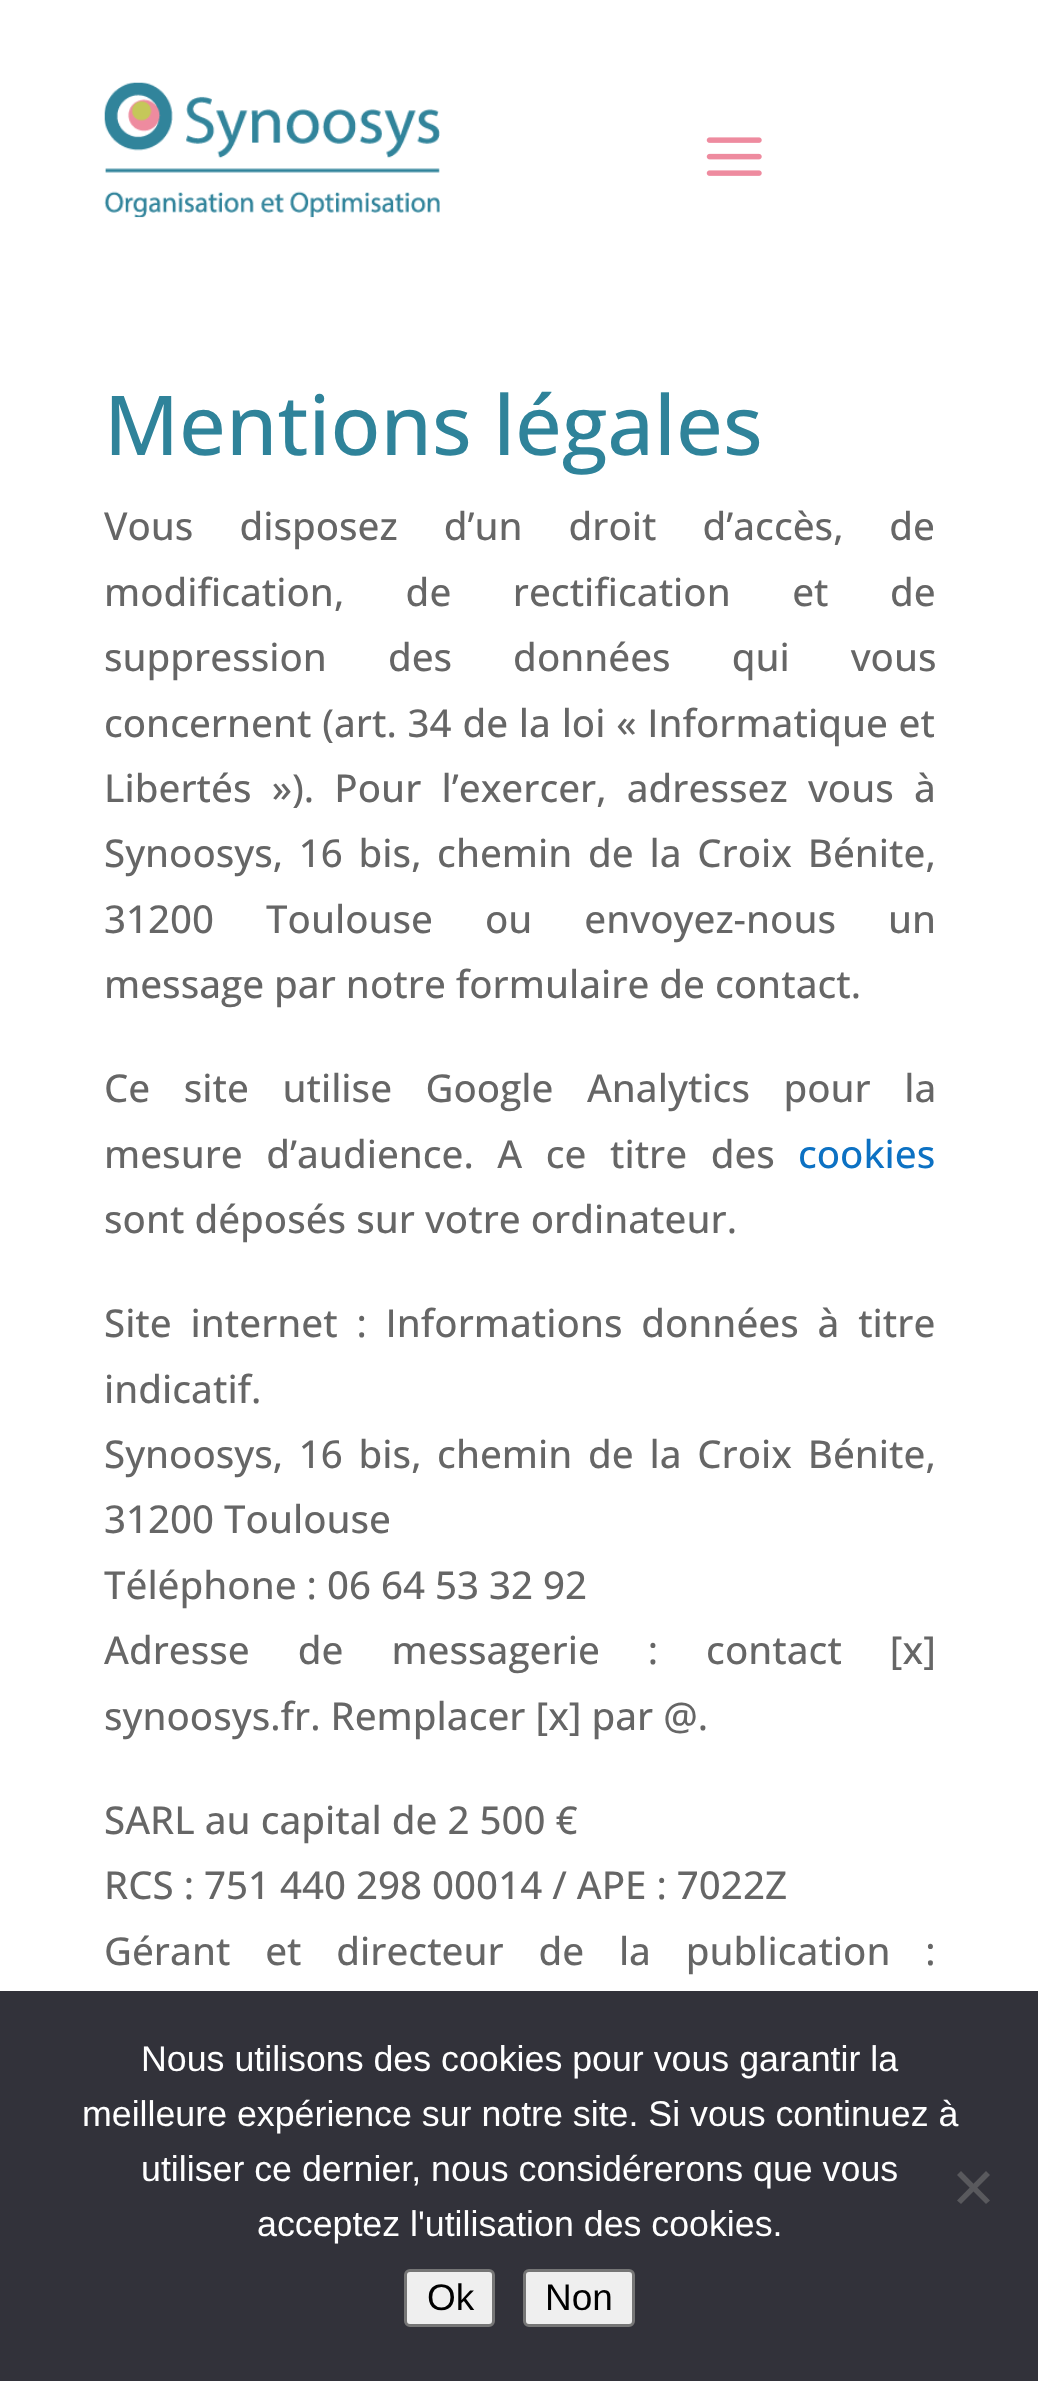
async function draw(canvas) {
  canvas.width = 1038
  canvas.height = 2381
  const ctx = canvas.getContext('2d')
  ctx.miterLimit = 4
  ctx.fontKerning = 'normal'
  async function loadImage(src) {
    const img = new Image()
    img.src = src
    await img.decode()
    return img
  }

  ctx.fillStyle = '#fff'
  ctx.fillRect(0, 0, 1038, 2381)
  ctx.drawImage(await loadImage('image0.png'), 104, 82, 336, 136)
  ctx.drawImage(await loadImage('image1.png'), 706, 137, 56, 39)
  ctx.font = '500 82.5px Open Sans'
  ctx.fillStyle = '#2f839a'
  ctx.fillText('Mentions légales', 104, 455)
  ctx.wordSpacing = '36px'
  ctx.font = '500 38.5px Open Sans'
  ctx.fillStyle = '#666'
  ctx.fillText('Vous disposez d’un droit d’accès, de', 104, 540)
  ctx.wordSpacing = '51.5px'
  ctx.fillText('modification, de rectification et de', 104, 606)
  ctx.wordSpacing = '51px'
  ctx.fillText('suppression des données qui vous', 104, 671)
  ctx.wordSpacing = '0.75px'
  ctx.fillText('concernent (art. 34 de la loi « Informatique et', 104, 737)
  ctx.wordSpacing = '10.25px'
  ctx.fillText('Libertés »). Pour l’exercer, adressez vous à', 104, 802)
  ctx.wordSpacing = '5.75px'
  ctx.fillText('Synoosys, 16 bis, chemin de la Croix Bénite,', 104, 867)
  ctx.wordSpacing = '42px'
  ctx.fillText('31200 Toulouse ou envoyez-nous un', 104, 933)
  ctx.wordSpacing = '0px'
  ctx.fillText('message par notre formulaire de contact.', 104, 998)
  ctx.wordSpacing = '23.5px'
  ctx.fillText('Ce site utilise Google Analytics pour la', 104, 1102)
  ctx.wordSpacing = '13.5px'
  ctx.fillText('mesure d’audience. A ce titre des', 104, 1168)
  ctx.wordSpacing = '0px'
  ctx.fillStyle = '#0c71c3'
  ctx.fillText('cookies', 798, 1168)
  ctx.fillStyle = '#666'
  ctx.fillText('sont déposés sur votre ordinateur.', 104, 1233)
  ctx.wordSpacing = '8.75px'
  ctx.fillText('Site internet : Informations données à titre', 104, 1337)
  ctx.wordSpacing = '0px'
  ctx.fillText('indicatif.', 104, 1403)
  ctx.wordSpacing = '5.75px'
  ctx.fillText('Synoosys, 16 bis, chemin de la Croix Bénite,', 104, 1468)
  ctx.wordSpacing = '0px'
  ctx.fillText('31200 Toulouse', 104, 1533)
  ctx.fillText('Téléphone : 06 64 53 32 92', 104, 1599)
  ctx.wordSpacing = '38px'
  ctx.fillText('Adresse de messagerie : contact [x]', 104, 1664)
  ctx.wordSpacing = '0px'
  ctx.fillText('synoosys.fr. Remplacer [x] par @.', 104, 1730)
  ctx.fillText('SARL au capital de 2 500 €', 104, 1834)
  ctx.fillText('RCS : 751 440 298 00014 / APE : 7022Z', 104, 1899)
  ctx.wordSpacing = '24.75px'
  ctx.fillText('Gérant et directeur de la publication :', 104, 1965)
  ctx.fillStyle = '#32323a'
  ctx.fillRect(0, 1991, 1038, 390)
  ctx.wordSpacing = '0px'
  ctx.font = '35.75px Liberation Sans'
  ctx.fillStyle = '#fff'
  ctx.fillText('Nous utilisons des cookies pour vous garantir la', 141, 2071)
  ctx.fillText('meilleure expérience sur notre site. Si vous continuez à', 82, 2126)
  ctx.fillText('utiliser ce dernier, nous considérerons que vous', 141, 2181)
  ctx.fillText('acceptez l\'utilisation des cookies.', 257, 2236)
  ctx.fillStyle = '#59595d'
  ctx.beginPath()
  ctx.moveTo(986, 2171)
  ctx.lineTo(990, 2175)
  ctx.lineTo(961, 2204)
  ctx.lineTo(957, 2200.5)
  ctx.closePath()
  ctx.fill()
  ctx.beginPath()
  ctx.moveTo(957, 2175)
  ctx.lineTo(961, 2171)
  ctx.lineTo(990, 2200.5)
  ctx.lineTo(986, 2204)
  ctx.closePath()
  ctx.fill()
  ctx.fillStyle = '#efefef'
  ctx.beginPath()
  ctx.roundRect(405.5, 2270.5, 88, 55, 4.5)
  ctx.fill()
  ctx.strokeStyle = '#767676'
  ctx.lineWidth = 3
  ctx.stroke()
  ctx.font = '37px Liberation Sans'
  ctx.fillStyle = '#000'
  ctx.fillText('Ok', 427, 2310)
  ctx.fillStyle = '#efefef'
  ctx.beginPath()
  ctx.roundRect(524.5, 2270.5, 109, 55, 4.5)
  ctx.fill()
  ctx.stroke()
  ctx.fillStyle = '#000'
  ctx.fillText('Non', 545, 2310)
}

draw(document.querySelector('canvas'))
